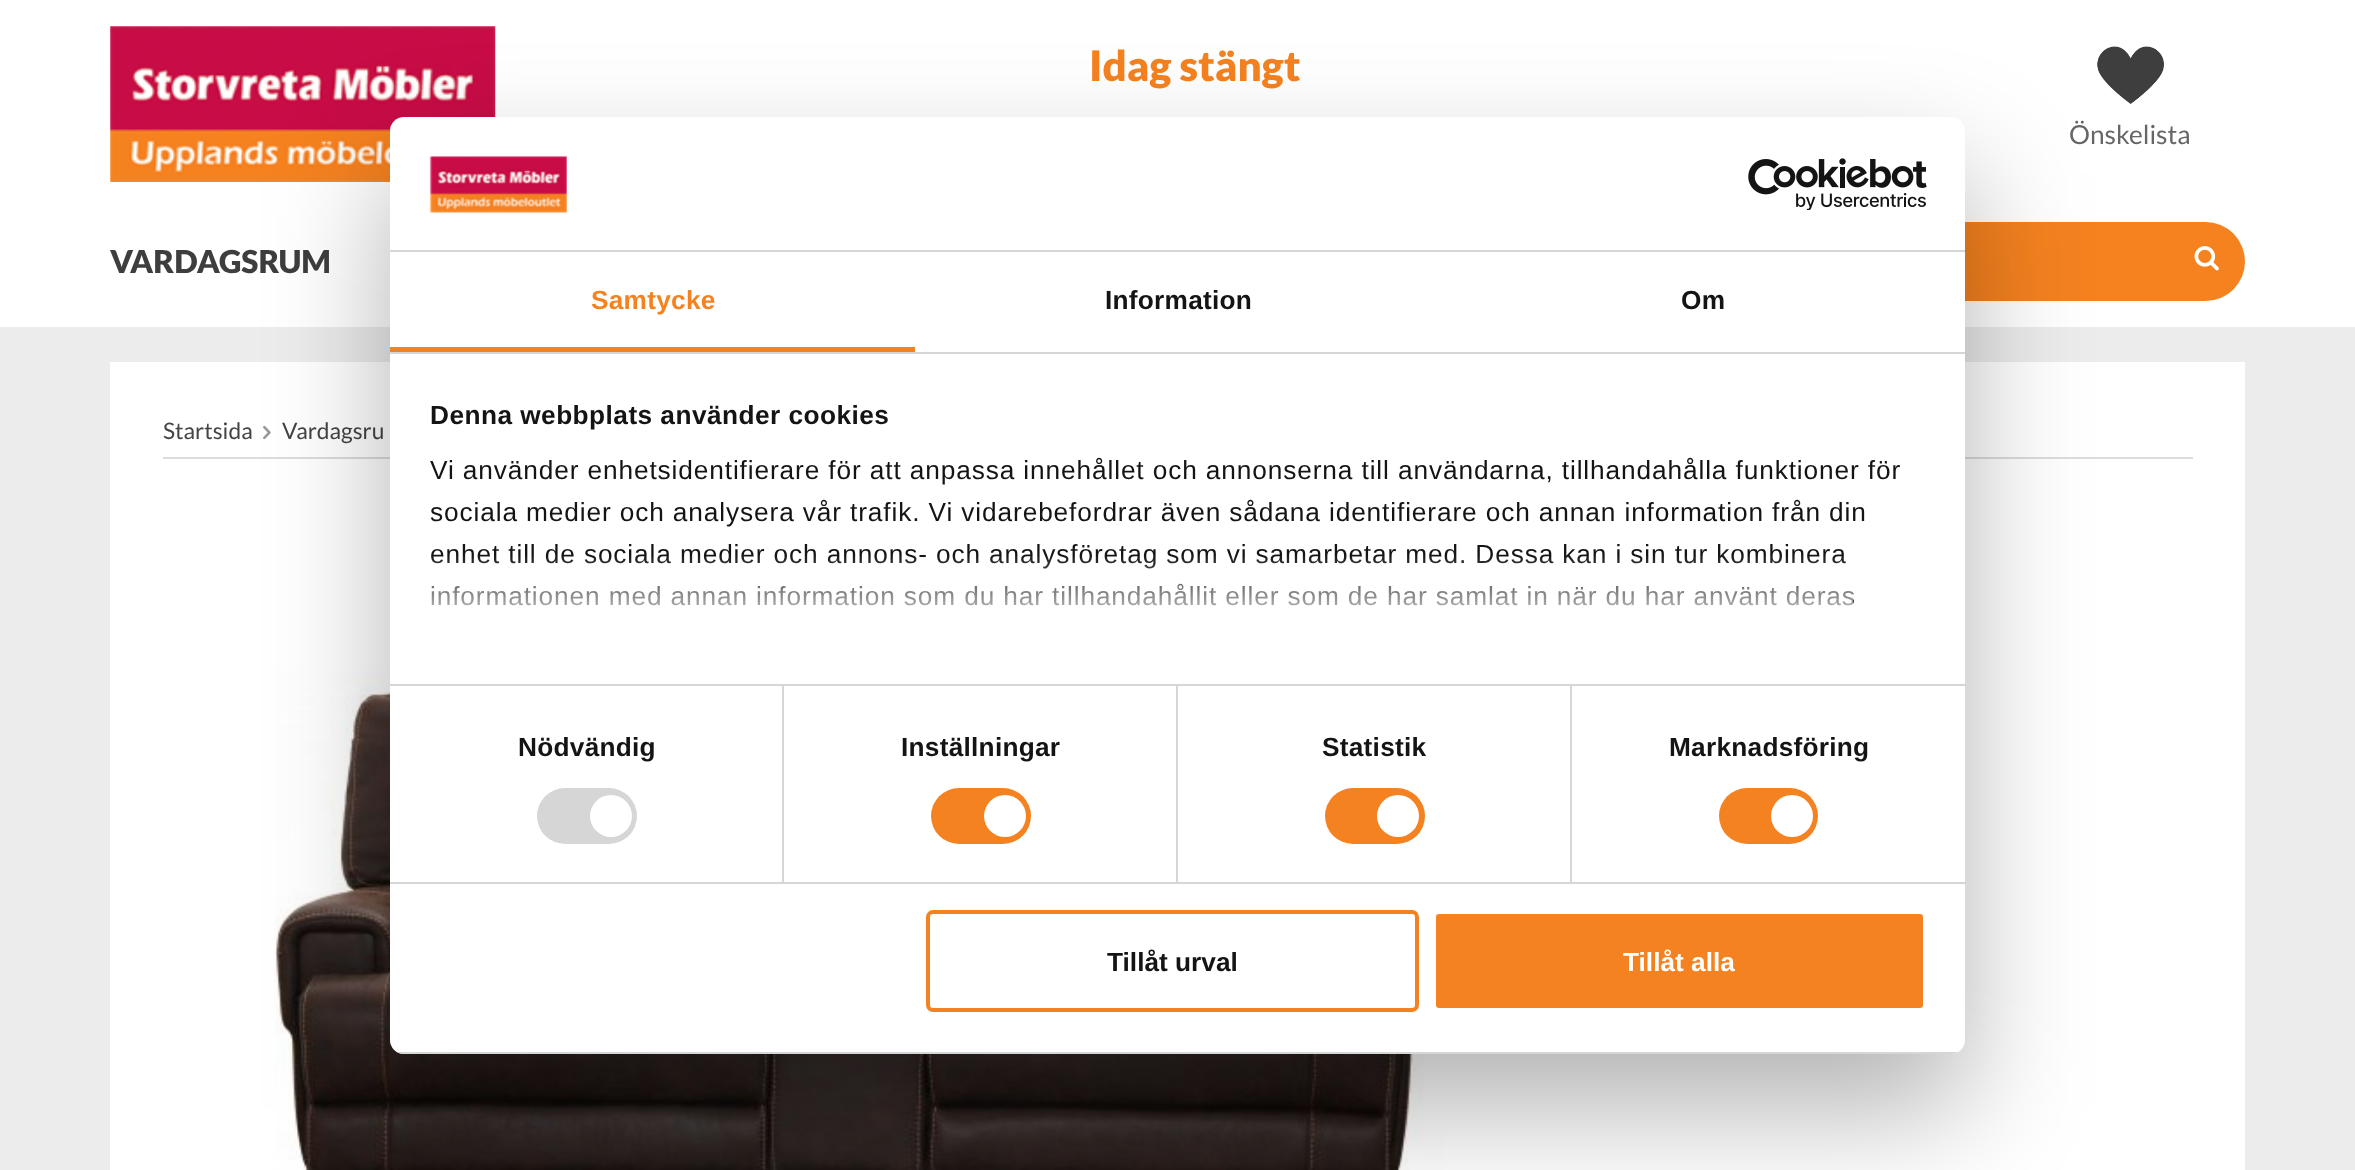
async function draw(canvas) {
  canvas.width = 2355
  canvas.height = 1170
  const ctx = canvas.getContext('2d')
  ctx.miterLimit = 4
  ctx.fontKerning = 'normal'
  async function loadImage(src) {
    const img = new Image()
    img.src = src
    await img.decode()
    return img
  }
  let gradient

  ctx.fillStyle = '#ececec'
  ctx.fillRect(0, 0, 2355, 1170)
  ctx.fillStyle = '#fff'
  ctx.fillRect(0, 0, 2355, 327)
  ctx.drawImage(await loadImage('image0.png'), 110, 26, 386, 156)
  ctx.font = '900 42px Lato'
  ctx.fillStyle = '#f5821f'
  ctx.fillText('Idag stängt', 1089, 81)
  ctx.drawImage(await loadImage('image1.png'), 2097, 46, 67, 58)
  ctx.font = '26.25px Lato'
  ctx.fillStyle = '#666'
  ctx.fillText('Önskelista', 2069, 144)
  ctx.font = '900 31.5px Lato'
  ctx.fillStyle = '#3e3e3e'
  ctx.fillText('VARDAGSRUM', 110, 273)
  ctx.fillStyle = '#f5821f'
  ctx.beginPath()
  ctx.roundRect(1738, 222, 507, 79, 39.5)
  ctx.fill()
  ctx.drawImage(await loadImage('image2.png'), 2194, 246, 25, 25)
  ctx.fillStyle = '#fff'
  ctx.fillRect(110, 362, 2135, 808)
  ctx.fillStyle = '#dcdcdc'
  ctx.fillRect(163, 457, 2030, 2)
  ctx.font = '22.75px Lato'
  ctx.fillStyle = '#444'
  ctx.fillText('Startsida', 163, 439)
  ctx.drawImage(await loadImage('image3.png'), 263, 425, 8, 15)
  ctx.fillText('Vardagsru', 282, 439)
  ctx.drawImage(await loadImage('image4.png'), 274, 670, 1170, 500)
  ctx.fillStyle = '#0000004d'
  ctx.filter = 'blur(59.5px)'
  ctx.beginPath()
  ctx.roundRect(390, 173, 1575, 937, 14)
  ctx.fill()
  ctx.filter = 'none'
  ctx.fillStyle = '#fff'
  ctx.beginPath()
  ctx.roundRect(390, 117, 1575, 937, 14)
  ctx.fill()
  ctx.fillStyle = '#d6d6d6'
  ctx.fillRect(390, 250, 1575, 2)
  ctx.drawImage(await loadImage('image5.png'), 429, 156, 138, 57)
  ctx.drawImage(await loadImage('image6.png'), 1748, 158, 179, 52)
  ctx.fillRect(390, 352, 1575, 2)
  ctx.fillStyle = '#f58221'
  ctx.fillRect(390, 347, 525, 5)
  ctx.letterSpacing = '0.25px'
  ctx.font = 'bold 26.25px Liberation Sans'
  ctx.fillStyle = '#f5821f'
  ctx.fillText('Samtycke', 591, 309)
  ctx.fillStyle = '#141414'
  ctx.fillText('Information', 1105, 309)
  ctx.fillText('Om', 1681, 309)
  ctx.fillStyle = '#d6d6d6'
  ctx.fillRect(390, 684, 1575, 2)
  ctx.letterSpacing = '0.45px'
  ctx.fillStyle = '#141414'
  ctx.fillText('Denna webbplats använder cookies', 430, 424)
  ctx.letterSpacing = '0.88px'
  ctx.font = '26.25px Liberation Sans'
  ctx.fillText('Vi använder enhetsidentifierare för att anpassa innehållet och annonserna till användarna, tillhandahålla funktioner för', 430, 479)
  ctx.fillText('sociala medier och analysera vår trafik. Vi vidarebefordrar även sådana identifierare och annan information från din', 430, 521)
  ctx.fillText('enhet till de sociala medier och annons- och analysföretag som vi samarbetar med. Dessa kan i sin tur kombinera', 430, 563)
  ctx.fillText('informationen med annan information som du har tillhandahållit eller som de har samlat in när du har använt deras', 430, 605)
  gradient = ctx.createLinearGradient(1160, 685, 1160, 554)
  gradient.addColorStop(0, '#fff')
  gradient.addColorStop(0.5, '#ffffffcc')
  gradient.addColorStop(1, '#ffffff00')
  ctx.fillStyle = gradient
  ctx.fillRect(431, 556, 1422, 50)
  ctx.fillStyle = '#d6d6d6'
  ctx.fillRect(390, 882, 1575, 2)
  ctx.fillRect(782, 686, 2, 196)
  ctx.letterSpacing = '0.25px'
  ctx.font = 'bold 26.25px Liberation Sans'
  ctx.fillStyle = '#141414'
  ctx.fillText('Nödvändig', 518, 756)
  ctx.fillStyle = '#d6d6d6'
  ctx.beginPath()
  ctx.roundRect(537, 788, 100, 56, 28)
  ctx.fill()
  ctx.fillStyle = '#fff'
  ctx.beginPath()
  ctx.arc(611, 816, 21, 0, 2 * Math.PI)
  ctx.fill()
  ctx.fillStyle = '#d6d6d6'
  ctx.fillRect(1176, 686, 2, 196)
  ctx.fillStyle = '#141414'
  ctx.fillText('Inställningar', 901, 756)
  ctx.fillStyle = '#f58221'
  ctx.beginPath()
  ctx.roundRect(931, 788, 100, 56, 28)
  ctx.fill()
  ctx.fillStyle = '#fff'
  ctx.beginPath()
  ctx.arc(1005, 816, 21, 0, 2 * Math.PI)
  ctx.fill()
  ctx.fillStyle = '#d6d6d6'
  ctx.fillRect(1570, 686, 2, 196)
  ctx.fillStyle = '#141414'
  ctx.fillText('Statistik', 1322, 756)
  ctx.fillStyle = '#f58221'
  ctx.beginPath()
  ctx.roundRect(1325, 788, 100, 56, 28)
  ctx.fill()
  ctx.fillStyle = '#fff'
  ctx.beginPath()
  ctx.arc(1398, 816, 21, 0, 2 * Math.PI)
  ctx.fill()
  ctx.fillStyle = '#141414'
  ctx.fillText('Marknadsföring', 1669, 756)
  ctx.fillStyle = '#f58221'
  ctx.beginPath()
  ctx.roundRect(1719, 788, 99, 56, 28)
  ctx.fill()
  ctx.fillStyle = '#fff'
  ctx.beginPath()
  ctx.arc(1792, 816, 21, 0, 2 * Math.PI)
  ctx.fill()
  ctx.save()
  ctx.beginPath()
  ctx.roundRect(390, 117, 1575, 937, 14)
  ctx.clip()
  ctx.fillStyle = '#d6d6d6'
  ctx.fillRect(390, 1052, 1575, 2)
  ctx.restore()
  ctx.beginPath()
  ctx.roundRect(928, 912, 489, 98, 5)
  ctx.strokeStyle = '#f58221'
  ctx.lineWidth = 4
  ctx.stroke()
  ctx.letterSpacing = '0px'
  ctx.fillStyle = '#141414'
  ctx.fillText('Tillåt urval', 1107, 971)
  ctx.fillStyle = '#f58221'
  ctx.beginPath()
  ctx.roundRect(1434, 912, 491, 98, 5)
  ctx.fill()
  ctx.strokeStyle = '#fff'
  ctx.stroke()
  ctx.fillStyle = '#fff'
  ctx.fillText('Tillåt alla', 1623, 971)
}

draw(document.querySelector('canvas'))
